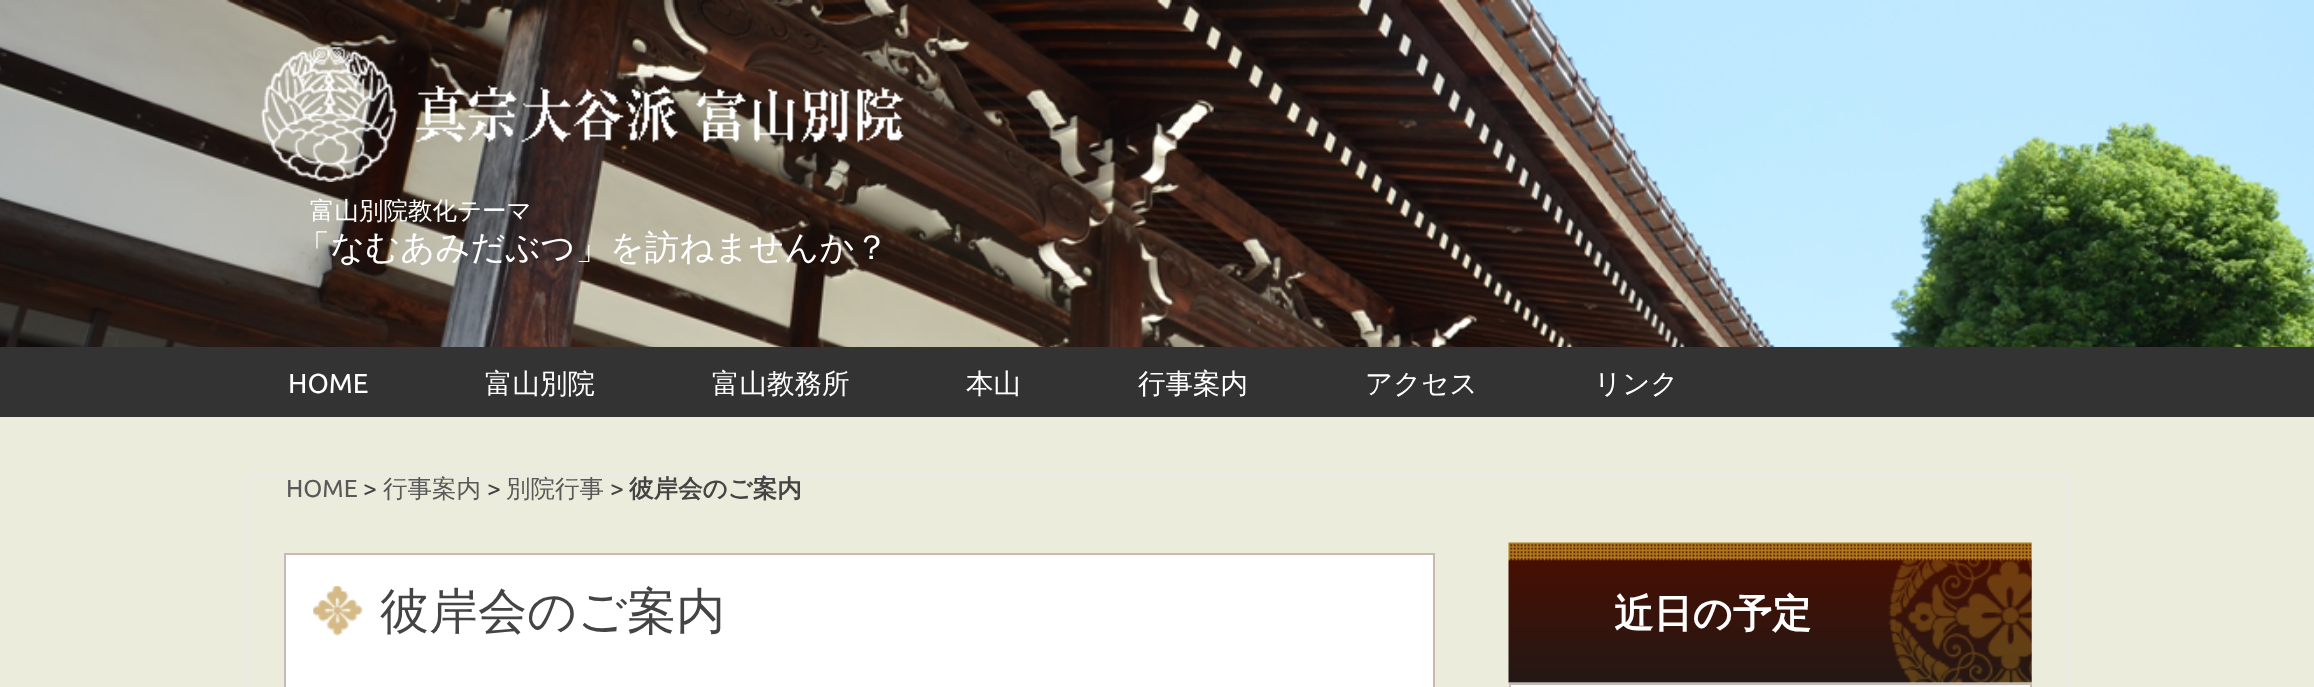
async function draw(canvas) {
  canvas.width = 2314
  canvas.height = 687
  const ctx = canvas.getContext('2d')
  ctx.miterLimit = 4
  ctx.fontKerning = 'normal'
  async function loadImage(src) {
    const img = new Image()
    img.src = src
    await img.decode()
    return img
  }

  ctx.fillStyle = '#ebecdc'
  ctx.fillRect(0, 0, 2314, 687)
  ctx.drawImage(await loadImage('image0.png'), 0, 0, 2314, 347)
  ctx.drawImage(await loadImage('image1.png'), 260, 47, 644, 135)
  ctx.font = '500 24.5px WenQuanYi Zen Hei'
  ctx.fillStyle = '#fff'
  ctx.fillText('富山別院教化テーマ', 310, 219)
  ctx.font = '500 34.25px WenQuanYi Zen Hei'
  ctx.fillText('「なむあみだぶつ」を訪ねませんか？', 296, 259)
  ctx.fillStyle = '#333'
  ctx.fillRect(0, 347, 2314, 70)
  ctx.font = '27.5px Ubuntu'
  ctx.fillStyle = '#fff'
  ctx.fillText('HOME', 288, 393)
  ctx.font = '500 27.5px WenQuanYi Zen Hei'
  ctx.fillText('富山別院', 485, 393)
  ctx.fillText('富山教務所', 712, 393)
  ctx.fillText('本山', 966, 393)
  ctx.fillText('行事案内', 1138, 393)
  ctx.fillText('アクセス', 1365, 393)
  ctx.fillText('リンク', 1594, 393)
  ctx.strokeStyle = '#e9e9e9'
  ctx.lineWidth = 2
  ctx.strokeRect(248, 475, 1821, 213)
  ctx.font = '24.5px Ubuntu'
  ctx.fillStyle = '#595959'
  ctx.fillText('HOME', 286, 497)
  ctx.fillStyle = '#444'
  ctx.fillText('>', 363, 497)
  ctx.font = '500 24.5px WenQuanYi Zen Hei'
  ctx.fillStyle = '#595959'
  ctx.fillText('行事案内', 383, 497)
  ctx.font = '24.5px Ubuntu'
  ctx.fillStyle = '#444'
  ctx.fillText('>', 487, 497)
  ctx.font = '500 24.5px WenQuanYi Zen Hei'
  ctx.fillStyle = '#595959'
  ctx.fillText('別院行事', 506, 497)
  ctx.font = '24.5px Ubuntu'
  ctx.fillStyle = '#444'
  ctx.fillText('>', 610, 497)
  ctx.font = 'bold 24.5px WenQuanYi Zen Hei'
  ctx.fillText('彼岸会のご案内', 629, 497)
  ctx.fillStyle = '#fff'
  ctx.beginPath()
  ctx.rect(285, 554, 1149, 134)
  ctx.fill()
  ctx.strokeStyle = '#c9b8b1'
  ctx.stroke()
  ctx.drawImage(await loadImage('image2.png'), 313, 586, 50, 50)
  ctx.font = '500 49px WenQuanYi Zen Hei'
  ctx.fillStyle = '#444'
  ctx.fillText('彼岸会のご案内', 380, 628)
  ctx.fillStyle = '#fff'
  ctx.fillRect(1509, 543, 523, 144)
  ctx.drawImage(await loadImage('image3.png'), 1508, 542, 524, 141)
  ctx.font = 'bold 39.25px WenQuanYi Zen Hei'
  ctx.fillText('近日の予定', 1614, 627)
  ctx.strokeStyle = '#c9b8af'
  ctx.strokeRect(1510, 684, 521, 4)
}

draw(document.querySelector('canvas'))
